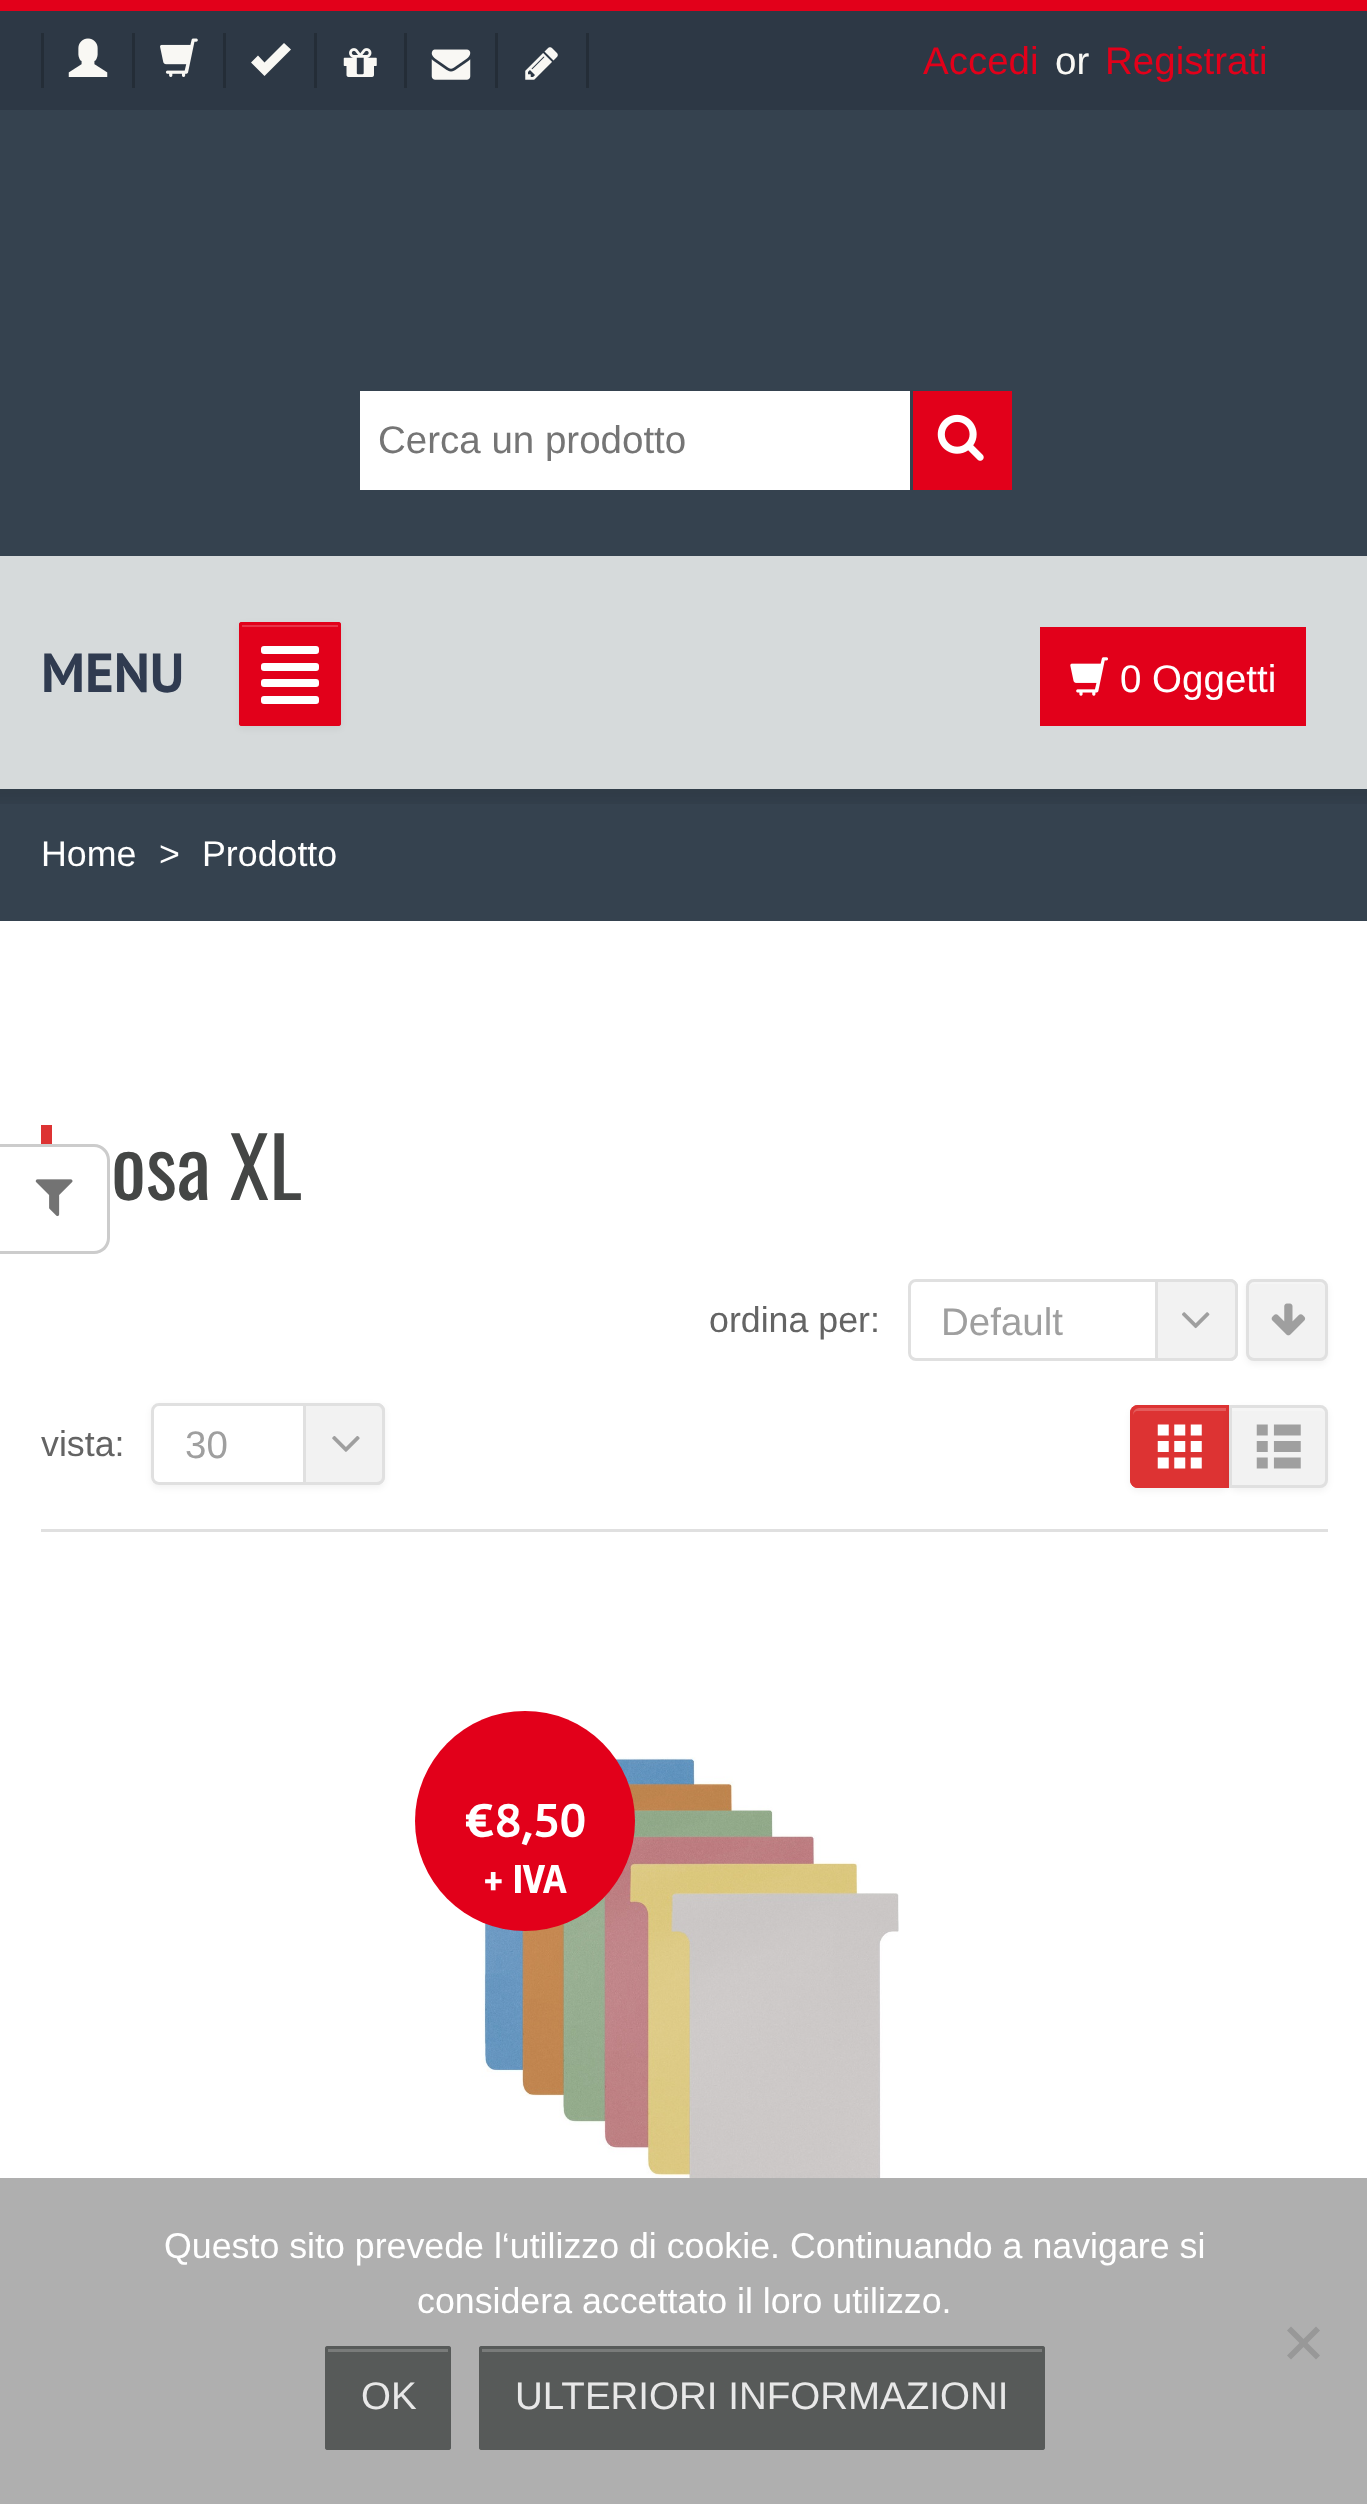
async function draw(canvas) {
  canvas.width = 1367
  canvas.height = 2504
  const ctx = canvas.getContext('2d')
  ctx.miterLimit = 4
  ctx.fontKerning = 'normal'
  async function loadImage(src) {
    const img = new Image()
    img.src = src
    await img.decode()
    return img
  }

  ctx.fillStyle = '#35424f'
  ctx.fillRect(0, 0, 1367, 2504)
  ctx.fillStyle = '#2d3845'
  ctx.fillRect(0, 11, 1367, 99)
  ctx.fillStyle = '#e2001a'
  ctx.fillRect(0, 0, 1367, 11)
  ctx.fillStyle = '#242d37'
  ctx.fillRect(41, 33, 3, 55)
  ctx.drawImage(await loadImage('image0.png'), 68, 38, 40, 39)
  ctx.fillRect(132, 33, 3, 55)
  ctx.drawImage(await loadImage('image1.png'), 160, 38, 38, 39)
  ctx.fillRect(223, 33, 3, 55)
  ctx.fillStyle = '#f9f8f4'
  ctx.beginPath()
  ctx.moveTo(251, 62.5)
  ctx.lineTo(264.5, 76)
  ctx.lineTo(291, 49.5)
  ctx.lineTo(284, 43)
  ctx.lineTo(264.5, 62.5)
  ctx.lineTo(258, 55.5)
  ctx.closePath()
  ctx.fill()
  ctx.fillStyle = '#242d37'
  ctx.fillRect(314, 33, 3, 55)
  ctx.drawImage(await loadImage('image2.png'), 343, 48, 34, 29)
  ctx.fillRect(404, 33, 3, 55)
  ctx.drawImage(await loadImage('image3.png'), 431, 49, 40, 31)
  ctx.fillRect(586, 33, 3, 55)
  ctx.fillRect(495, 33, 3, 55)
  ctx.drawImage(await loadImage('image4.png'), 525, 47, 33, 33)
  ctx.font = '38.5px Liberation Sans'
  ctx.fillStyle = '#e2001a'
  ctx.fillText('Accedi', 923, 74)
  ctx.fillStyle = '#f9f8f4'
  ctx.fillText('or', 1055, 74)
  ctx.fillStyle = '#e2001a'
  ctx.fillText('Registrati', 1105, 74)
  ctx.fillStyle = '#d6dadb'
  ctx.fillRect(0, 556, 1367, 233)
  ctx.font = 'bold 55px PT Sans'
  ctx.fillStyle = '#303b50'
  ctx.fillText('MENU', 41, 692)
  ctx.fillStyle = '#0000000d'
  ctx.filter = 'blur(3px)'
  ctx.beginPath()
  ctx.roundRect(239, 624, 102, 105, 3)
  ctx.fill()
  ctx.filter = 'none'
  ctx.fillStyle = '#e2001a'
  ctx.beginPath()
  ctx.roundRect(239, 622, 102, 104, 3)
  ctx.fill()
  ctx.fillStyle = '#e83348'
  ctx.fillRect(242, 625, 96, 2)
  ctx.beginPath()
  ctx.roundRect(240.5, 623.5, 99, 101, 1.5)
  ctx.strokeStyle = '#e2001a'
  ctx.lineWidth = 3
  ctx.stroke()
  ctx.fillStyle = '#fff'
  ctx.beginPath()
  ctx.roundRect(261, 646, 58, 8, 3)
  ctx.fill()
  ctx.beginPath()
  ctx.roundRect(261, 663, 58, 8, 3)
  ctx.fill()
  ctx.beginPath()
  ctx.roundRect(261, 679, 58, 8, 3)
  ctx.fill()
  ctx.beginPath()
  ctx.roundRect(261, 696, 58, 8, 3)
  ctx.fill()
  ctx.fillRect(360, 391, 550, 99)
  ctx.font = '38.5px Liberation Sans'
  ctx.fillStyle = '#757575'
  ctx.fillText('Cerca un prodotto', 378, 453)
  ctx.fillStyle = '#e2001a'
  ctx.fillRect(913, 391, 99, 99)
  ctx.drawImage(await loadImage('image5.png'), 937, 414, 47, 47)
  ctx.fillRect(1040, 627, 266, 99)
  ctx.drawImage(await loadImage('image6.png'), 1070, 657, 38, 39)
  ctx.fillStyle = '#fff'
  ctx.fillText('0 Oggetti', 1120, 692)
  ctx.drawImage(await loadImage('image7.png'), 0, 789, 1367, 15)
  ctx.font = '35.75px Liberation Sans'
  ctx.fillText('Home', 41, 866)
  ctx.fillText('>', 159, 866)
  ctx.fillText('Prodotto', 202, 866)
  ctx.fillRect(0, 921, 1367, 1257)
  ctx.fillStyle = '#d33'
  ctx.fillRect(41, 1125, 11, 19)
  ctx.font = '82.5px Oswald'
  ctx.fillStyle = '#444645'
  ctx.fillText('osa XL', 111, 1200)
  ctx.font = '35.75px Liberation Sans'
  ctx.fillStyle = '#646464'
  ctx.fillText('ordina per:', 709, 1332)
  ctx.fillStyle = '#0000000d'
  ctx.filter = 'blur(3px)'
  ctx.beginPath()
  ctx.roundRect(1246, 1282, 82, 82, 8)
  ctx.fill()
  ctx.filter = 'none'
  ctx.beginPath()
  ctx.roundRect(909.5, 1280.5, 327, 79, 6.5)
  ctx.strokeStyle = '#e0e0e0'
  ctx.stroke()
  ctx.font = '38.5px Liberation Sans'
  ctx.fillStyle = '#9f9f9f'
  ctx.fillText('Default', 941, 1335)
  ctx.fillStyle = '#f2f2f2'
  ctx.beginPath()
  ctx.roundRect(1156.5, 1280.5, 80, 79, [0, 6.5, 6.5, 0])
  ctx.fill()
  ctx.stroke()
  ctx.drawImage(await loadImage('image8.png'), 1182, 1312, 28, 17)
  ctx.beginPath()
  ctx.roundRect(1246, 1279, 82, 82, 8)
  ctx.fill()
  ctx.fillStyle = '#f5f5f5'
  ctx.beginPath()
  ctx.moveTo(1254, 1284)
  ctx.lineTo(1320, 1284)
  ctx.bezierCurveTo(1323, 1284, 1326, 1287, 1326, 1290)
  ctx.lineTo(1326, 1288)
  ctx.bezierCurveTo(1326, 1285, 1323, 1282, 1320, 1282)
  ctx.lineTo(1255, 1282)
  ctx.bezierCurveTo(1252, 1282, 1250, 1284, 1249, 1287)
  ctx.bezierCurveTo(1250, 1285, 1252, 1284, 1254, 1284)
  ctx.closePath()
  ctx.fill()
  ctx.beginPath()
  ctx.roundRect(1247.5, 1280.5, 79, 79, 6.5)
  ctx.stroke()
  ctx.drawImage(await loadImage('image9.png'), 1271, 1303, 35, 33)
  ctx.fillStyle = '#0000000d'
  ctx.filter = 'blur(3px)'
  ctx.beginPath()
  ctx.roundRect(1130, 1408, 99, 83, 8)
  ctx.fill()
  ctx.filter = 'none'
  ctx.fillStyle = '#d33'
  ctx.beginPath()
  ctx.roundRect(1130, 1405, 99, 83, [8, 0, 0, 8])
  ctx.fill()
  ctx.fillStyle = '#e45c5c'
  ctx.beginPath()
  ctx.moveTo(1138, 1411)
  ctx.lineTo(1226, 1411)
  ctx.lineTo(1226, 1485)
  ctx.lineTo(1227, 1485)
  ctx.lineTo(1227, 1408)
  ctx.lineTo(1139, 1408)
  ctx.bezierCurveTo(1136, 1408, 1133, 1411, 1133, 1414)
  ctx.lineTo(1133, 1416)
  ctx.bezierCurveTo(1133, 1413, 1135, 1411, 1138, 1411)
  ctx.closePath()
  ctx.fill()
  ctx.beginPath()
  ctx.roundRect(1131.5, 1406.5, 96, 80, [6.5, 0, 0, 6.5])
  ctx.strokeStyle = '#d33'
  ctx.stroke()
  ctx.drawImage(await loadImage('image10.png'), 1157, 1424, 45, 45)
  ctx.fillStyle = '#0000000d'
  ctx.filter = 'blur(3px)'
  ctx.beginPath()
  ctx.roundRect(1229, 1408, 99, 83, 8)
  ctx.fill()
  ctx.filter = 'none'
  ctx.fillStyle = '#f2f2f2'
  ctx.beginPath()
  ctx.roundRect(1229, 1405, 99, 83, [0, 8, 8, 0])
  ctx.fill()
  ctx.fillStyle = '#f5f5f5'
  ctx.beginPath()
  ctx.moveTo(1232, 1411)
  ctx.lineTo(1320, 1411)
  ctx.bezierCurveTo(1323, 1411, 1326, 1413, 1326, 1416)
  ctx.lineTo(1326, 1414)
  ctx.bezierCurveTo(1326, 1411, 1323, 1408, 1320, 1408)
  ctx.lineTo(1232, 1408)
  ctx.closePath()
  ctx.fill()
  ctx.beginPath()
  ctx.roundRect(1230.5, 1406.5, 96, 80, [0, 6.5, 6.5, 0])
  ctx.strokeStyle = '#e0e0e0'
  ctx.stroke()
  ctx.drawImage(await loadImage('image11.png'), 1256, 1424, 45, 45)
  ctx.fillStyle = '#e0e0e0'
  ctx.fillRect(41, 1529, 1287, 3)
  ctx.font = '35.75px Liberation Sans'
  ctx.fillStyle = '#646464'
  ctx.fillText('vista:', 41, 1456)
  ctx.save()
  ctx.beginPath()
  ctx.moveTo(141, 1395)
  ctx.lineTo(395, 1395)
  ctx.lineTo(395, 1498)
  ctx.lineTo(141, 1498)
  ctx.closePath()
  ctx.moveTo(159, 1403)
  ctx.lineTo(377, 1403)
  ctx.bezierCurveTo(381.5, 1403, 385, 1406.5, 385, 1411)
  ctx.lineTo(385, 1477)
  ctx.bezierCurveTo(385, 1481.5, 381.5, 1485, 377, 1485)
  ctx.lineTo(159, 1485)
  ctx.bezierCurveTo(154.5, 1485, 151, 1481.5, 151, 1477)
  ctx.lineTo(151, 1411)
  ctx.bezierCurveTo(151, 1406.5, 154.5, 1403, 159, 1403)
  ctx.closePath()
  ctx.clip('evenodd')
  ctx.fillStyle = '#0000000d'
  ctx.filter = 'blur(3px)'
  ctx.beginPath()
  ctx.roundRect(151, 1405, 234, 83, 8)
  ctx.fill()
  ctx.filter = 'none'
  ctx.restore()
  ctx.beginPath()
  ctx.roundRect(152.5, 1404.5, 231, 79, 6.5)
  ctx.stroke()
  ctx.font = '38.5px Liberation Sans'
  ctx.fillStyle = '#9f9f9f'
  ctx.fillText('30', 185, 1458)
  ctx.fillStyle = '#f2f2f2'
  ctx.beginPath()
  ctx.roundRect(304.5, 1404.5, 79, 79, [0, 6.5, 6.5, 0])
  ctx.fill()
  ctx.stroke()
  ctx.drawImage(await loadImage('image12.png'), 332, 1436, 28, 16)
  ctx.drawImage(await loadImage('image13.png'), 462, 1757, 437, 421)
  ctx.fillStyle = '#e2001a'
  ctx.beginPath()
  ctx.arc(525, 1821, 110, 0, 2 * Math.PI)
  ctx.fill()
  ctx.font = 'bold 47px Gudea'
  ctx.fillStyle = '#fff'
  ctx.fillText('€8,50', 465, 1837)
  ctx.font = 'bold 40px Gudea'
  ctx.fillText('+ IVA', 484, 1893)
  ctx.fillStyle = '#ccc'
  ctx.beginPath()
  ctx.moveTo(0, 1144)
  ctx.lineTo(94, 1144)
  ctx.bezierCurveTo(103, 1144, 110, 1151, 110, 1160)
  ctx.lineTo(110, 1238)
  ctx.bezierCurveTo(110, 1247, 103, 1254, 94, 1254)
  ctx.lineTo(0, 1254)
  ctx.closePath()
  ctx.moveTo(0, 1147)
  ctx.lineTo(94, 1147)
  ctx.bezierCurveTo(101, 1147, 107, 1153, 107, 1160)
  ctx.lineTo(107, 1238)
  ctx.bezierCurveTo(107, 1245, 101, 1251, 94, 1251)
  ctx.lineTo(0, 1251)
  ctx.closePath()
  ctx.fill('evenodd')
  ctx.drawImage(await loadImage('image14.png'), 35, 1179, 38, 38)
  ctx.fillStyle = '#afafaf'
  ctx.fillRect(0, 2178, 1367, 326)
  ctx.font = '35.75px Liberation Sans'
  ctx.fillStyle = '#fff'
  ctx.fillText('Questo sito prevede l‘utilizzo di cookie. Continuando a navigare si', 164, 2258)
  ctx.fillText('considera accettato il loro utilizzo.', 417, 2313)
  ctx.fillStyle = '#989898'
  ctx.beginPath()
  ctx.moveTo(1316, 2326.5)
  ctx.lineTo(1320, 2330.5)
  ctx.lineTo(1291, 2359.5)
  ctx.lineTo(1287, 2355.5)
  ctx.closePath()
  ctx.fill()
  ctx.beginPath()
  ctx.moveTo(1287, 2330.5)
  ctx.lineTo(1291, 2326.5)
  ctx.lineTo(1320, 2355.5)
  ctx.lineTo(1316, 2359.5)
  ctx.closePath()
  ctx.fill()
  ctx.fillStyle = '#575a59'
  ctx.beginPath()
  ctx.roundRect(325, 2346, 126, 104, 3)
  ctx.fill()
  ctx.fillStyle = '#797b7a'
  ctx.fillRect(327, 2349, 121, 3)
  ctx.beginPath()
  ctx.roundRect(326.5, 2347.5, 123, 101, 1.5)
  ctx.strokeStyle = '#575a59'
  ctx.stroke()
  ctx.font = '38.5px Liberation Sans'
  ctx.fillStyle = '#e8e8e8'
  ctx.fillText('OK', 361, 2409)
  ctx.fillStyle = '#575a59'
  ctx.beginPath()
  ctx.roundRect(479, 2346, 566, 104, 3)
  ctx.fill()
  ctx.fillStyle = '#797b7a'
  ctx.fillRect(481, 2349, 561, 3)
  ctx.beginPath()
  ctx.roundRect(480.5, 2347.5, 563, 101, 1.5)
  ctx.stroke()
  ctx.fillStyle = '#e8e8e8'
  ctx.fillText('ULTERIORI INFORMAZIONI', 515, 2409)
}

draw(document.querySelector('canvas'))
